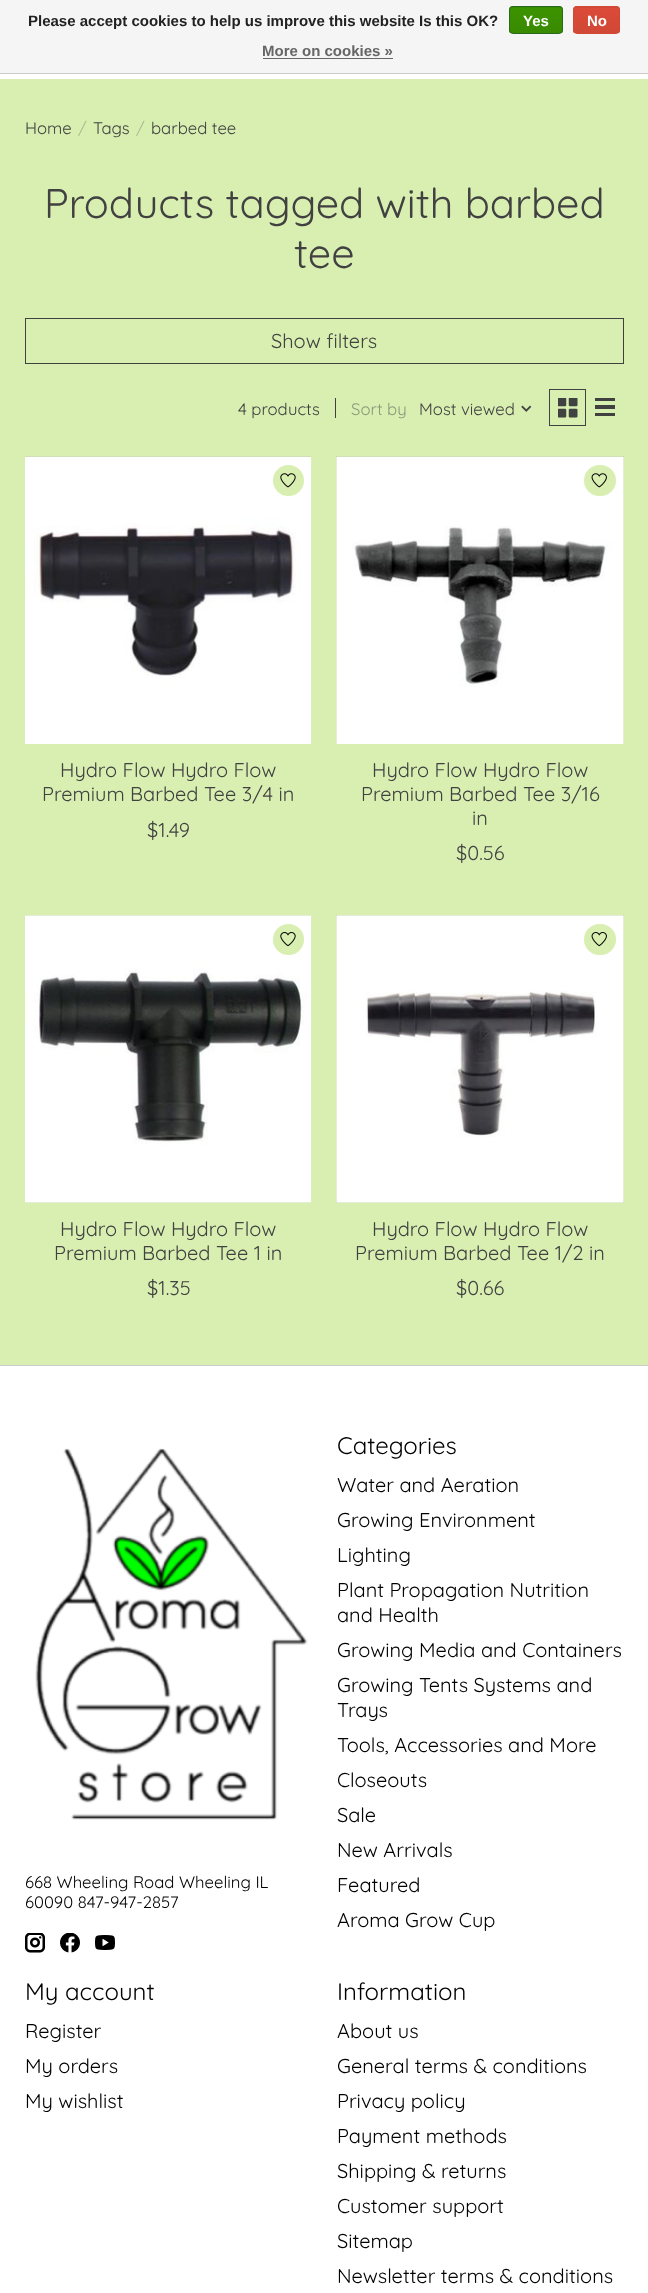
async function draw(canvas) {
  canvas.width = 648
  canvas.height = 2293
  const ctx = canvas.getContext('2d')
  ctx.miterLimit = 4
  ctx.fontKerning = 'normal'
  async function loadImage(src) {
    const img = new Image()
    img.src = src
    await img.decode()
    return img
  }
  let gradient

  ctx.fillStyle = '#d8efb1'
  ctx.fillRect(0, 0, 648, 2293)
  ctx.fillStyle = '#f5f5f5'
  ctx.fillRect(0, 0, 648, 73)
  ctx.fillStyle = '#ccc'
  ctx.fillRect(0, 73, 648, 1)
  ctx.font = 'bold 15px Liberation Sans'
  ctx.fillStyle = '#222'
  ctx.fillText('Please accept cookies to help us improve this website Is this OK?', 28, 26)
  ctx.save()
  ctx.beginPath()
  ctx.roundRect(509, 6, 54, 28, 4)
  ctx.clip()
  gradient = ctx.createLinearGradient(536, -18, 536, 7.5)
  gradient.addColorStop(0, '#3c9300')
  gradient.addColorStop(1, '#398a00')
  ctx.fillStyle = gradient
  ctx.fillRect(509, 6, 54, 2)
  gradient = ctx.createLinearGradient(536, 7.5, 536, 33)
  gradient.addColorStop(0, '#3c9300')
  gradient.addColorStop(1, '#398a00')
  ctx.fillStyle = gradient
  ctx.fillRect(509, 8, 54, 25)
  ctx.restore()
  ctx.beginPath()
  ctx.roundRect(509.5, 6.5, 53, 27, 3.5)
  ctx.strokeStyle = '#29691d'
  ctx.stroke()
  ctx.fillStyle = '#fff'
  ctx.fillText('Yes', 523, 26)
  ctx.save()
  ctx.beginPath()
  ctx.roundRect(573, 6, 47, 28, 4)
  ctx.clip()
  gradient = ctx.createLinearGradient(596, -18, 596, 7.5)
  gradient.addColorStop(0, '#dc4a38')
  gradient.addColorStop(1, '#d14836')
  ctx.fillStyle = gradient
  ctx.fillRect(573, 6, 47, 2)
  gradient = ctx.createLinearGradient(596, 7.5, 596, 33)
  gradient.addColorStop(0, '#dc4a38')
  gradient.addColorStop(1, '#d14836')
  ctx.fillStyle = gradient
  ctx.fillRect(573, 8, 47, 25)
  ctx.restore()
  ctx.beginPath()
  ctx.roundRect(573.5, 6.5, 46, 27, 3.5)
  ctx.strokeStyle = '#d14836'
  ctx.stroke()
  ctx.fillText('No', 587, 26)
  ctx.fillStyle = '#666'
  ctx.fillText('More on cookies »', 262, 56)
  ctx.fillRect(263, 58, 130, 1)
  ctx.fillStyle = '#fff'
  ctx.fillRect(0, 74, 648, 5)
  ctx.font = '16.7px Quicksand'
  ctx.fillStyle = '#414141'
  ctx.fillText('Home', 25, 134)
  ctx.fillStyle = '#abbb8f'
  ctx.fillText('/', 78, 134)
  ctx.fillStyle = '#414141'
  ctx.fillText('Tags', 93, 134)
  ctx.fillStyle = '#abbb8f'
  ctx.fillText('/', 136, 134)
  ctx.fillStyle = '#414141'
  ctx.fillText('barbed tee', 151, 134)
  ctx.font = '41.5px Quicksand'
  ctx.fillText('Products tagged with barbed', 44, 218)
  ctx.fillText('tee', 294, 268)
  ctx.strokeStyle = '#414141'
  ctx.strokeRect(25.5, 318.5, 598, 45)
  ctx.font = '20px Quicksand'
  ctx.fillText('Show filters', 271, 348)
  ctx.font = '16.7px Quicksand'
  ctx.fillText('4 products', 238, 415)
  ctx.fillRect(335, 398, 1, 20)
  ctx.fillStyle = '#8d9879'
  ctx.fillText('Sort by', 351, 415)
  ctx.fillStyle = '#414141'
  ctx.fillText('Most viewed', 419, 415)
  ctx.drawImage(await loadImage('image0.png'), 521, 405, 11, 7)
  ctx.strokeRect(549.5, 389.5, 36, 36)
  ctx.drawImage(await loadImage('image1.png'), 558, 398, 20, 20)
  ctx.fillRect(595, 398, 20, 3)
  ctx.fillRect(595, 405, 20, 4)
  ctx.fillRect(595, 413, 20, 3)
  ctx.fillStyle = '#c1d5a0'
  ctx.fillRect(25, 456, 286, 1)
  ctx.drawImage(await loadImage('image2.png'), 25, 456, 287, 288)
  ctx.fillStyle = '#d8efb1'
  ctx.beginPath()
  ctx.arc(288.5, 480.5, 15.5, 0, 2 * Math.PI)
  ctx.fill()
  ctx.drawImage(await loadImage('image3.png'), 280, 473, 16, 15)
  ctx.font = '20px Quicksand'
  ctx.fillStyle = '#414141'
  ctx.fillText('Hydro Flow Hydro Flow', 60, 777)
  ctx.fillText('Premium Barbed Tee 3/4 in', 42, 801)
  ctx.fillText('$1.49', 147, 837)
  ctx.fillStyle = '#c1d5a0'
  ctx.fillRect(336, 456, 288, 288)
  ctx.drawImage(await loadImage('image4.png'), 336, 456, 288, 288)
  ctx.fillStyle = '#d8efb1'
  ctx.beginPath()
  ctx.roundRect(584, 465, 32, 31, 15.5)
  ctx.fill()
  ctx.drawImage(await loadImage('image5.png'), 591, 473, 16, 15)
  ctx.fillStyle = '#414141'
  ctx.fillText('Hydro Flow Hydro Flow', 372, 777)
  ctx.fillText('Premium Barbed Tee 3/16', 361, 801)
  ctx.fillText('in', 472, 825)
  ctx.fillText('$0.56', 456, 860)
  ctx.fillStyle = '#c1d5a0'
  ctx.fillRect(25, 915, 286, 288)
  ctx.drawImage(await loadImage('image6.png'), 25, 915, 287, 288)
  ctx.fillStyle = '#d8efb1'
  ctx.beginPath()
  ctx.arc(288.5, 939.5, 15.5, 0, 2 * Math.PI)
  ctx.fill()
  ctx.drawImage(await loadImage('image7.png'), 280, 932, 16, 15)
  ctx.fillStyle = '#414141'
  ctx.fillText('Hydro Flow Hydro Flow', 60, 1236)
  ctx.fillText('Premium Barbed Tee 1 in', 54, 1260)
  ctx.fillText('$1.35', 147, 1295)
  ctx.fillStyle = '#c1d5a0'
  ctx.fillRect(336, 915, 288, 288)
  ctx.drawImage(await loadImage('image8.png'), 336, 915, 288, 288)
  ctx.fillStyle = '#d8efb1'
  ctx.beginPath()
  ctx.roundRect(584, 924, 32, 31, 15.5)
  ctx.fill()
  ctx.drawImage(await loadImage('image9.png'), 591, 932, 16, 15)
  ctx.fillStyle = '#414141'
  ctx.fillText('Hydro Flow Hydro Flow', 372, 1236)
  ctx.fillText('Premium Barbed Tee 1/2 in', 355, 1260)
  ctx.fillText('$0.66', 456, 1295)
  ctx.fillStyle = '#fff'
  ctx.fillRect(0, 1366, 648, 927)
  ctx.fillStyle = '#ccc'
  ctx.fillRect(0, 1365, 648, 1)
  ctx.drawImage(await loadImage('image10.png'), 35, 1448, 273, 372)
  ctx.font = '16.7px Quicksand'
  ctx.fillStyle = '#000'
  ctx.fillText('668 Wheeling Road Wheeling IL', 25, 1888)
  ctx.fillText('60090 847-947-2857', 25, 1908)
  ctx.drawImage(await loadImage('image11.png'), 25, 1933, 20, 20)
  ctx.drawImage(await loadImage('image12.png'), 60, 1933, 20, 20)
  ctx.drawImage(await loadImage('image13.png'), 95, 1935, 20, 15)
  ctx.font = '24px Quicksand'
  ctx.fillText('Categories', 337, 1454)
  ctx.font = '20px Quicksand'
  ctx.fillText('Water and Aeration', 337, 1492)
  ctx.fillText('Growing Environment', 337, 1527)
  ctx.fillText('Lighting', 337, 1562)
  ctx.fillText('Plant Propagation Nutrition', 337, 1597)
  ctx.fillText('and Health', 337, 1622)
  ctx.fillText('Growing Media and Containers', 337, 1657)
  ctx.fillText('Growing Tents Systems and', 337, 1692)
  ctx.fillText('Trays', 337, 1717)
  ctx.fillText('Tools, Accessories and More', 337, 1752)
  ctx.fillText('Closeouts', 337, 1787)
  ctx.fillText('Sale', 337, 1822)
  ctx.fillText('New Arrivals', 337, 1857)
  ctx.fillText('Featured', 337, 1892)
  ctx.fillText('Aroma Grow Cup', 337, 1927)
  ctx.font = '24px Quicksand'
  ctx.fillText('My account', 25, 2000)
  ctx.font = '20px Quicksand'
  ctx.fillText('Register', 25, 2038)
  ctx.fillText('My orders', 25, 2073)
  ctx.fillText('My wishlist', 25, 2108)
  ctx.font = '24px Quicksand'
  ctx.fillText('Information', 337, 2000)
  ctx.font = '20px Quicksand'
  ctx.fillText('About us', 337, 2038)
  ctx.fillText('General terms & conditions', 337, 2073)
  ctx.fillText('Privacy policy', 337, 2108)
  ctx.fillText('Payment methods', 337, 2143)
  ctx.fillText('Shipping & returns', 337, 2178)
  ctx.fillText('Customer support', 337, 2213)
  ctx.fillText('Sitemap', 337, 2248)
  ctx.fillText('Newsletter terms & conditions', 337, 2283)
}

draw(document.querySelector('canvas'))
